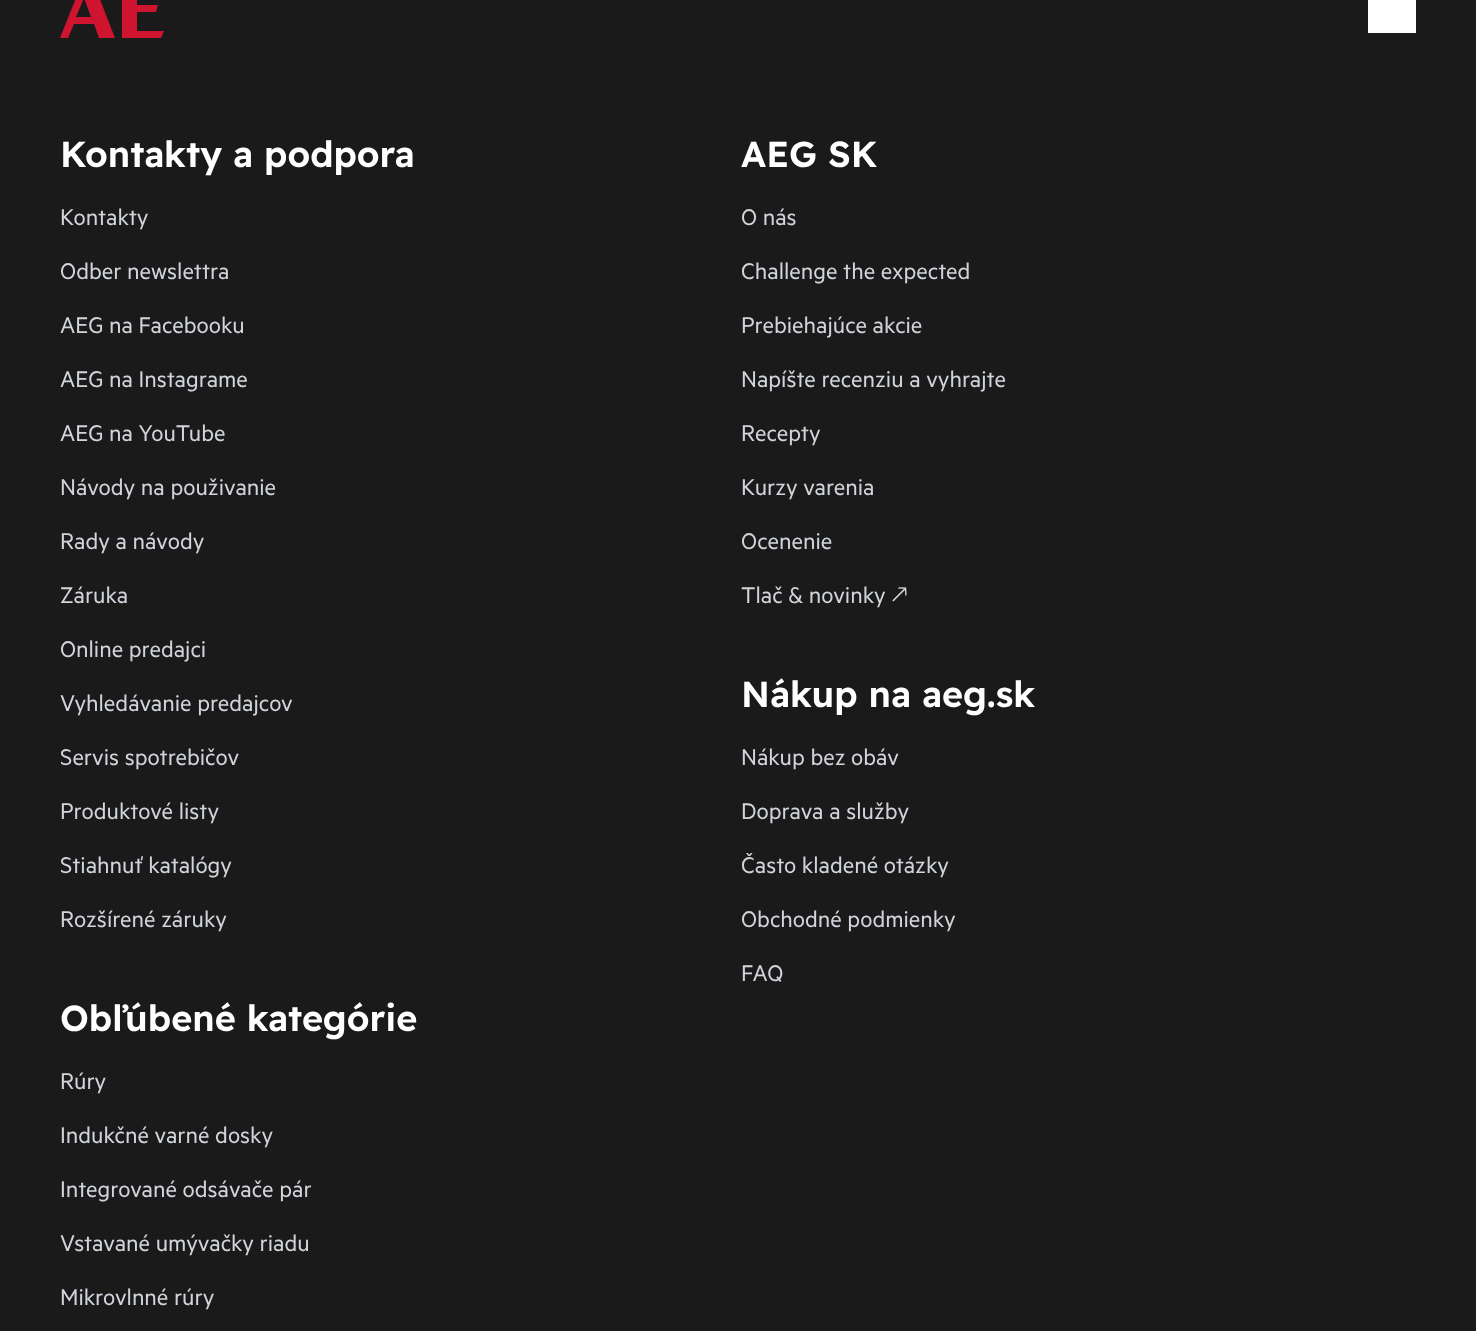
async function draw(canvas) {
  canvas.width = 1476
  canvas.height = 1331
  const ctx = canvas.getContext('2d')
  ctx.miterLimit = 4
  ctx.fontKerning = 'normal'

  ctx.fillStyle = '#1a1a1a'
  ctx.fillRect(0, 0, 1476, 1331)
  ctx.fillStyle = '#cf1430'
  ctx.beginPath()
  ctx.moveTo(76, -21)
  ctx.lineTo(80, -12)
  ctx.lineTo(60, 38)
  ctx.lineTo(68, 38)
  ctx.lineTo(74, 24)
  ctx.lineTo(94, 24)
  ctx.lineTo(99, 38)
  ctx.lineTo(115, 38)
  ctx.lineTo(92, -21)
  ctx.closePath()
  ctx.moveTo(76, 17)
  ctx.lineTo(84, -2)
  ctx.lineTo(91, 17)
  ctx.closePath()
  ctx.fill()
  ctx.beginPath()
  ctx.moveTo(137, 12)
  ctx.lineTo(156, 12)
  ctx.lineTo(158, 5)
  ctx.lineTo(137, 5)
  ctx.lineTo(137, -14)
  ctx.lineTo(160, -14)
  ctx.lineTo(163, -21)
  ctx.lineTo(122, -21)
  ctx.lineTo(122, 38)
  ctx.lineTo(161, 38)
  ctx.lineTo(164, 31)
  ctx.lineTo(137, 31)
  ctx.closePath()
  ctx.fill()
  ctx.fillStyle = '#fff'
  ctx.fillRect(1368, 0, 48, 33)
  ctx.font = '600 36px Readex Pro'
  ctx.fillText('Kontakty a podpora', 60, 167)
  ctx.fillText('AEG SK', 741, 167)
  ctx.font = '25.5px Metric'
  ctx.fillStyle = '#d1d5db'
  ctx.fillText('Kontakty', 60, 225)
  ctx.fillText('O nás', 741, 225)
  ctx.fillText('Odber newslettra', 60, 279)
  ctx.fillText('Challenge the expected', 741, 279)
  ctx.fillText('AEG na Facebooku', 60, 333)
  ctx.fillText('Prebiehajúce akcie', 741, 333)
  ctx.fillText('AEG na Instagrame', 60, 387)
  ctx.fillText('Napíšte recenziu a vyhrajte', 741, 387)
  ctx.fillText('AEG na YouTube', 60, 441)
  ctx.fillText('Recepty', 741, 441)
  ctx.fillText('Návody na použivanie', 60, 495)
  ctx.fillText('Kurzy varenia', 741, 495)
  ctx.fillText('Rady a návody', 60, 549)
  ctx.fillText('Ocenenie', 741, 549)
  ctx.fillText('Záruka', 60, 603)
  ctx.fillText('Tlač & novinky', 741, 603)
  ctx.font = '25.5px "Noto Sans Symbols 2"'
  ctx.fillText('🡕', 891, 603)
  ctx.font = '25.5px Metric'
  ctx.fillText('Online predajci', 60, 657)
  ctx.fillText('Vyhledávanie predajcov', 60, 711)
  ctx.font = '600 36px Readex Pro'
  ctx.fillStyle = '#fff'
  ctx.fillText('Nákup na aeg.sk', 741, 707)
  ctx.font = '25.5px Metric'
  ctx.fillStyle = '#d1d5db'
  ctx.fillText('Servis spotrebičov', 60, 765)
  ctx.fillText('Nákup bez obáv', 741, 765)
  ctx.fillText('Produktové listy', 60, 819)
  ctx.fillText('Doprava a služby', 741, 819)
  ctx.fillText('Stiahnuť katalógy', 60, 873)
  ctx.fillText('Často kladené otázky', 741, 873)
  ctx.fillText('Rozšírené záruky', 60, 927)
  ctx.fillText('Obchodné podmienky', 741, 927)
  ctx.fillText('FAQ', 741, 981)
  ctx.font = '600 36px Readex Pro'
  ctx.fillStyle = '#fff'
  ctx.fillText('Obľúbené kategórie', 60, 1031)
  ctx.font = '25.5px Metric'
  ctx.fillStyle = '#d1d5db'
  ctx.fillText('Rúry', 60, 1089)
  ctx.fillText('Indukčné varné dosky', 60, 1143)
  ctx.fillText('Integrované odsávače pár', 60, 1197)
  ctx.fillText('Vstavané umývačky riadu', 60, 1251)
  ctx.fillText('Mikrovlnné rúry', 60, 1305)
}

draw(document.querySelector('canvas'))
